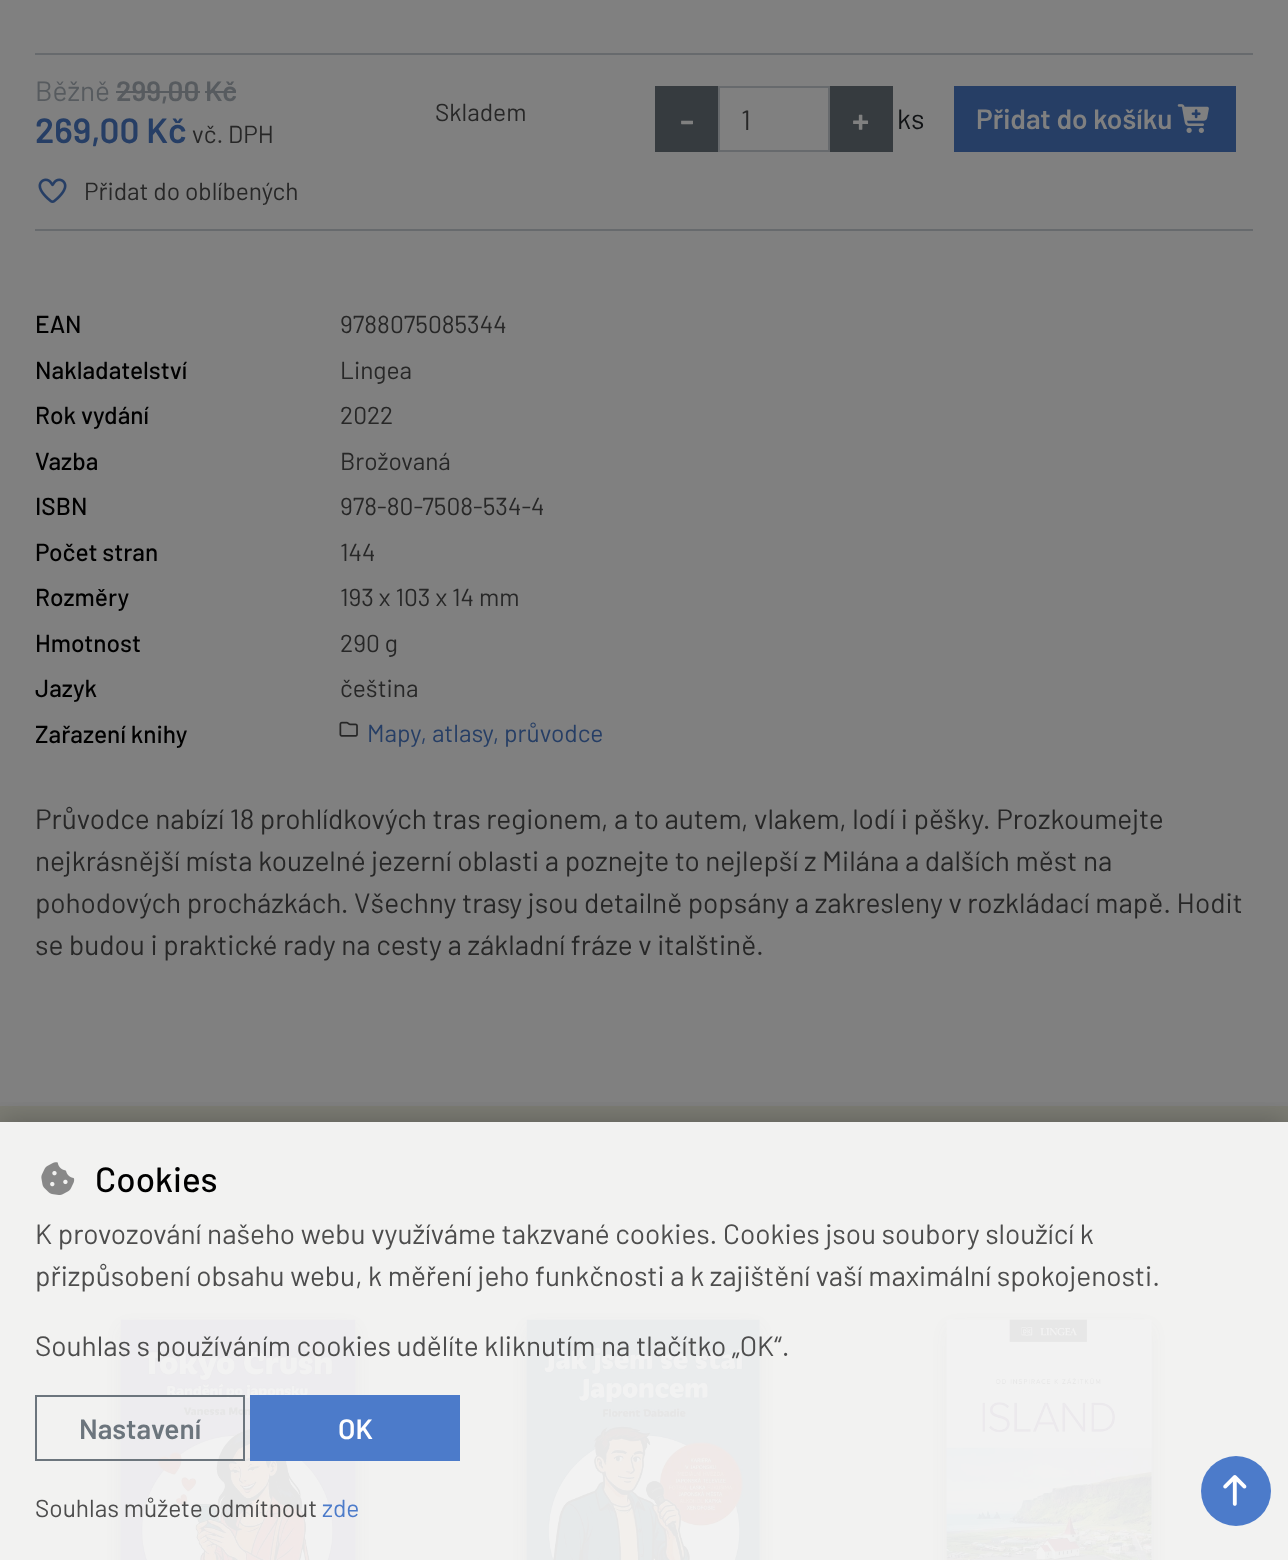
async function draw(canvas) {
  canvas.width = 1288
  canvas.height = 1560
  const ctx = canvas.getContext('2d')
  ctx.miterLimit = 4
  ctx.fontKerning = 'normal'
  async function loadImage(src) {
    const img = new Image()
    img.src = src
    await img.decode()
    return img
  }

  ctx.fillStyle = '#7c7c74'
  ctx.fillRect(0, 0, 1288, 1560)
  ctx.fillStyle = '#808080'
  ctx.fillRect(0, 0, 1288, 1106)
  ctx.fillStyle = '#676a6d'
  ctx.fillRect(35, 53, 1218, 2)
  ctx.fillRect(35, 229, 1218, 2)
  ctx.font = '28px Barlow'
  ctx.fillStyle = '#575b5f'
  ctx.fillText('Běžně', 35, 101)
  ctx.font = '600 28px Barlow'
  ctx.fillText('299,00 Kč', 116, 101)
  ctx.fillRect(116, 91, 84, 2)
  ctx.fillRect(205, 91, 31, 2)
  ctx.font = '600 35px Barlow'
  ctx.fillStyle = '#263e65'
  ctx.fillText('269,00 Kč', 35, 143)
  ctx.font = '24.5px Barlow'
  ctx.fillStyle = '#272727'
  ctx.fillText('vč. DPH', 192, 143)
  ctx.fillText('Skladem', 435, 121)
  ctx.fillStyle = '#363b3f'
  ctx.fillRect(655, 86, 63, 66)
  ctx.font = '600 35px Barlow'
  ctx.fillStyle = '#808080'
  ctx.fillText('-', 680, 133)
  ctx.strokeStyle = '#676a6d'
  ctx.lineWidth = 2
  ctx.strokeRect(719, 87, 110, 64)
  ctx.font = '28px Barlow'
  ctx.fillStyle = '#272727'
  ctx.fillText('1', 741, 130)
  ctx.fillStyle = '#363b3f'
  ctx.fillRect(830, 86, 63, 66)
  ctx.font = '600 35px Barlow'
  ctx.fillStyle = '#808080'
  ctx.fillText('+', 852, 133)
  ctx.font = '28px Barlow'
  ctx.fillStyle = '#111315'
  ctx.fillText('ks', 897, 129)
  ctx.fillStyle = '#263e65'
  ctx.fillRect(954, 86, 282, 66)
  ctx.font = '600 28px Barlow'
  ctx.fillStyle = '#808080'
  ctx.fillText('Přidat do košíku', 976, 129)
  ctx.drawImage(await loadImage('image0.png'), 1177, 104, 32, 29)
  ctx.drawImage(await loadImage('image1.png'), 38, 178, 29, 25)
  ctx.font = '24.5px Barlow'
  ctx.fillStyle = '#272727'
  ctx.fillText('Přidat do oblíbených', 84, 200)
  ctx.font = '500 24.5px Barlow'
  ctx.fillStyle = '#000'
  ctx.fillText('EAN', 35, 333)
  ctx.font = '24.5px Barlow'
  ctx.fillStyle = '#272727'
  ctx.fillText('9788075085344', 340, 333)
  ctx.font = '500 24.5px Barlow'
  ctx.fillStyle = '#000'
  ctx.fillText('Nakladatelství', 35, 379)
  ctx.font = '24.5px Barlow'
  ctx.fillStyle = '#272727'
  ctx.fillText('Lingea', 340, 379)
  ctx.font = '500 24.5px Barlow'
  ctx.fillStyle = '#000'
  ctx.fillText('Rok vydání', 35, 424)
  ctx.font = '24.5px Barlow'
  ctx.fillStyle = '#272727'
  ctx.fillText('2022', 340, 424)
  ctx.font = '500 24.5px Barlow'
  ctx.fillStyle = '#000'
  ctx.fillText('Vazba', 35, 470)
  ctx.font = '24.5px Barlow'
  ctx.fillStyle = '#272727'
  ctx.fillText('Brožovaná', 340, 470)
  ctx.font = '500 24.5px Barlow'
  ctx.fillStyle = '#000'
  ctx.fillText('ISBN', 35, 515)
  ctx.font = '24.5px Barlow'
  ctx.fillStyle = '#272727'
  ctx.fillText('978-80-7508-534-4', 340, 515)
  ctx.font = '500 24.5px Barlow'
  ctx.fillStyle = '#000'
  ctx.fillText('Počet stran', 35, 561)
  ctx.font = '24.5px Barlow'
  ctx.fillStyle = '#272727'
  ctx.fillText('144', 340, 561)
  ctx.font = '500 24.5px Barlow'
  ctx.fillStyle = '#000'
  ctx.fillText('Rozměry', 35, 606)
  ctx.font = '24.5px Barlow'
  ctx.fillStyle = '#272727'
  ctx.fillText('193 x 103 x 14 mm', 340, 606)
  ctx.font = '500 24.5px Barlow'
  ctx.fillStyle = '#000'
  ctx.fillText('Hmotnost', 35, 652)
  ctx.font = '24.5px Barlow'
  ctx.fillStyle = '#272727'
  ctx.fillText('290 g', 340, 652)
  ctx.font = '500 24.5px Barlow'
  ctx.fillStyle = '#000'
  ctx.fillText('Jazyk', 35, 697)
  ctx.font = '24.5px Barlow'
  ctx.fillStyle = '#272727'
  ctx.fillText('čeština', 340, 697)
  ctx.font = '500 24.5px Barlow'
  ctx.fillStyle = '#000'
  ctx.fillText('Zařazení knihy', 35, 743)
  ctx.drawImage(await loadImage('image2.png'), 339, 721, 19, 16)
  ctx.font = '24.5px Barlow'
  ctx.fillStyle = '#263e65'
  ctx.fillText('Mapy, atlasy, průvodce', 367, 742)
  ctx.font = '28px Barlow'
  ctx.fillStyle = '#272727'
  ctx.fillText('Průvodce nabízí 18 prohlídkových tras regionem, a to autem, vlakem, lodí i pěšky. Prozkoumejte', 35, 829)
  ctx.fillText('nejkrásnější místa kouzelné jezerní oblasti a poznejte to nejlepší z Milána a dalších měst na', 35, 871)
  ctx.fillText('pohodových procházkách. Všechny trasy jsou detailně popsány a zakresleny v rozkládací mapě. Hodit', 35, 913)
  ctx.fillText('se budou i praktické rady na cesty a základní fráze v italštině.', 35, 955)
  ctx.fillStyle = '#f2f2f1'
  ctx.fillRect(0, 1122, 1288, 438)
  ctx.drawImage(await loadImage('image3.png'), 107, 1313, 262, 247)
  ctx.drawImage(await loadImage('image4.png'), 513, 1313, 260, 247)
  ctx.drawImage(await loadImage('image5.png'), 933, 1313, 232, 247)
  ctx.save()
  ctx.beginPath()
  ctx.rect(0, 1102, 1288, 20)
  ctx.clip()
  ctx.fillStyle = '#00000040'
  ctx.filter = 'blur(14px)'
  ctx.beginPath()
  ctx.rect(0, 1122, 1288, 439)
  ctx.fill()
  ctx.filter = 'none'
  ctx.restore()
  ctx.drawImage(await loadImage('image6.png'), 41, 1162, 34, 33)
  ctx.font = '500 35px Barlow'
  ctx.fillStyle = '#000'
  ctx.fillText('Cookies', 95, 1192)
  ctx.font = '28px Barlow'
  ctx.fillStyle = '#4d4d4d'
  ctx.fillText('K provozování našeho webu využíváme takzvané cookies. Cookies jsou soubory sloužící k', 35, 1244)
  ctx.fillText('přizpůsobení obsahu webu, k měření jeho funkčnosti a k zajištění vaší maximální spokojenosti.', 35, 1286)
  ctx.fillText('Souhlas s používáním cookies udělíte kliknutím na tlačítko „OK“.', 35, 1356)
  ctx.strokeStyle = '#6c757d'
  ctx.strokeRect(36, 1396, 208, 64)
  ctx.font = '600 28px Barlow'
  ctx.fillStyle = '#6c757d'
  ctx.fillText('Nastavení', 79, 1439)
  ctx.fillStyle = '#4c7bca'
  ctx.fillRect(250, 1395, 210, 66)
  ctx.fillStyle = '#fff'
  ctx.fillText('OK', 338, 1439)
  ctx.font = '24.5px Barlow'
  ctx.fillStyle = '#4d4d4d'
  ctx.fillText('Souhlas můžete odmítnout', 35, 1517)
  ctx.fillStyle = '#4c7bca'
  ctx.fillText('zde', 322, 1517)
  ctx.beginPath()
  ctx.arc(1236, 1491, 35, 0, 2 * Math.PI)
  ctx.fill()
  ctx.drawImage(await loadImage('image7.png'), 1223, 1475, 24, 31)
}

draw(document.querySelector('canvas'))
